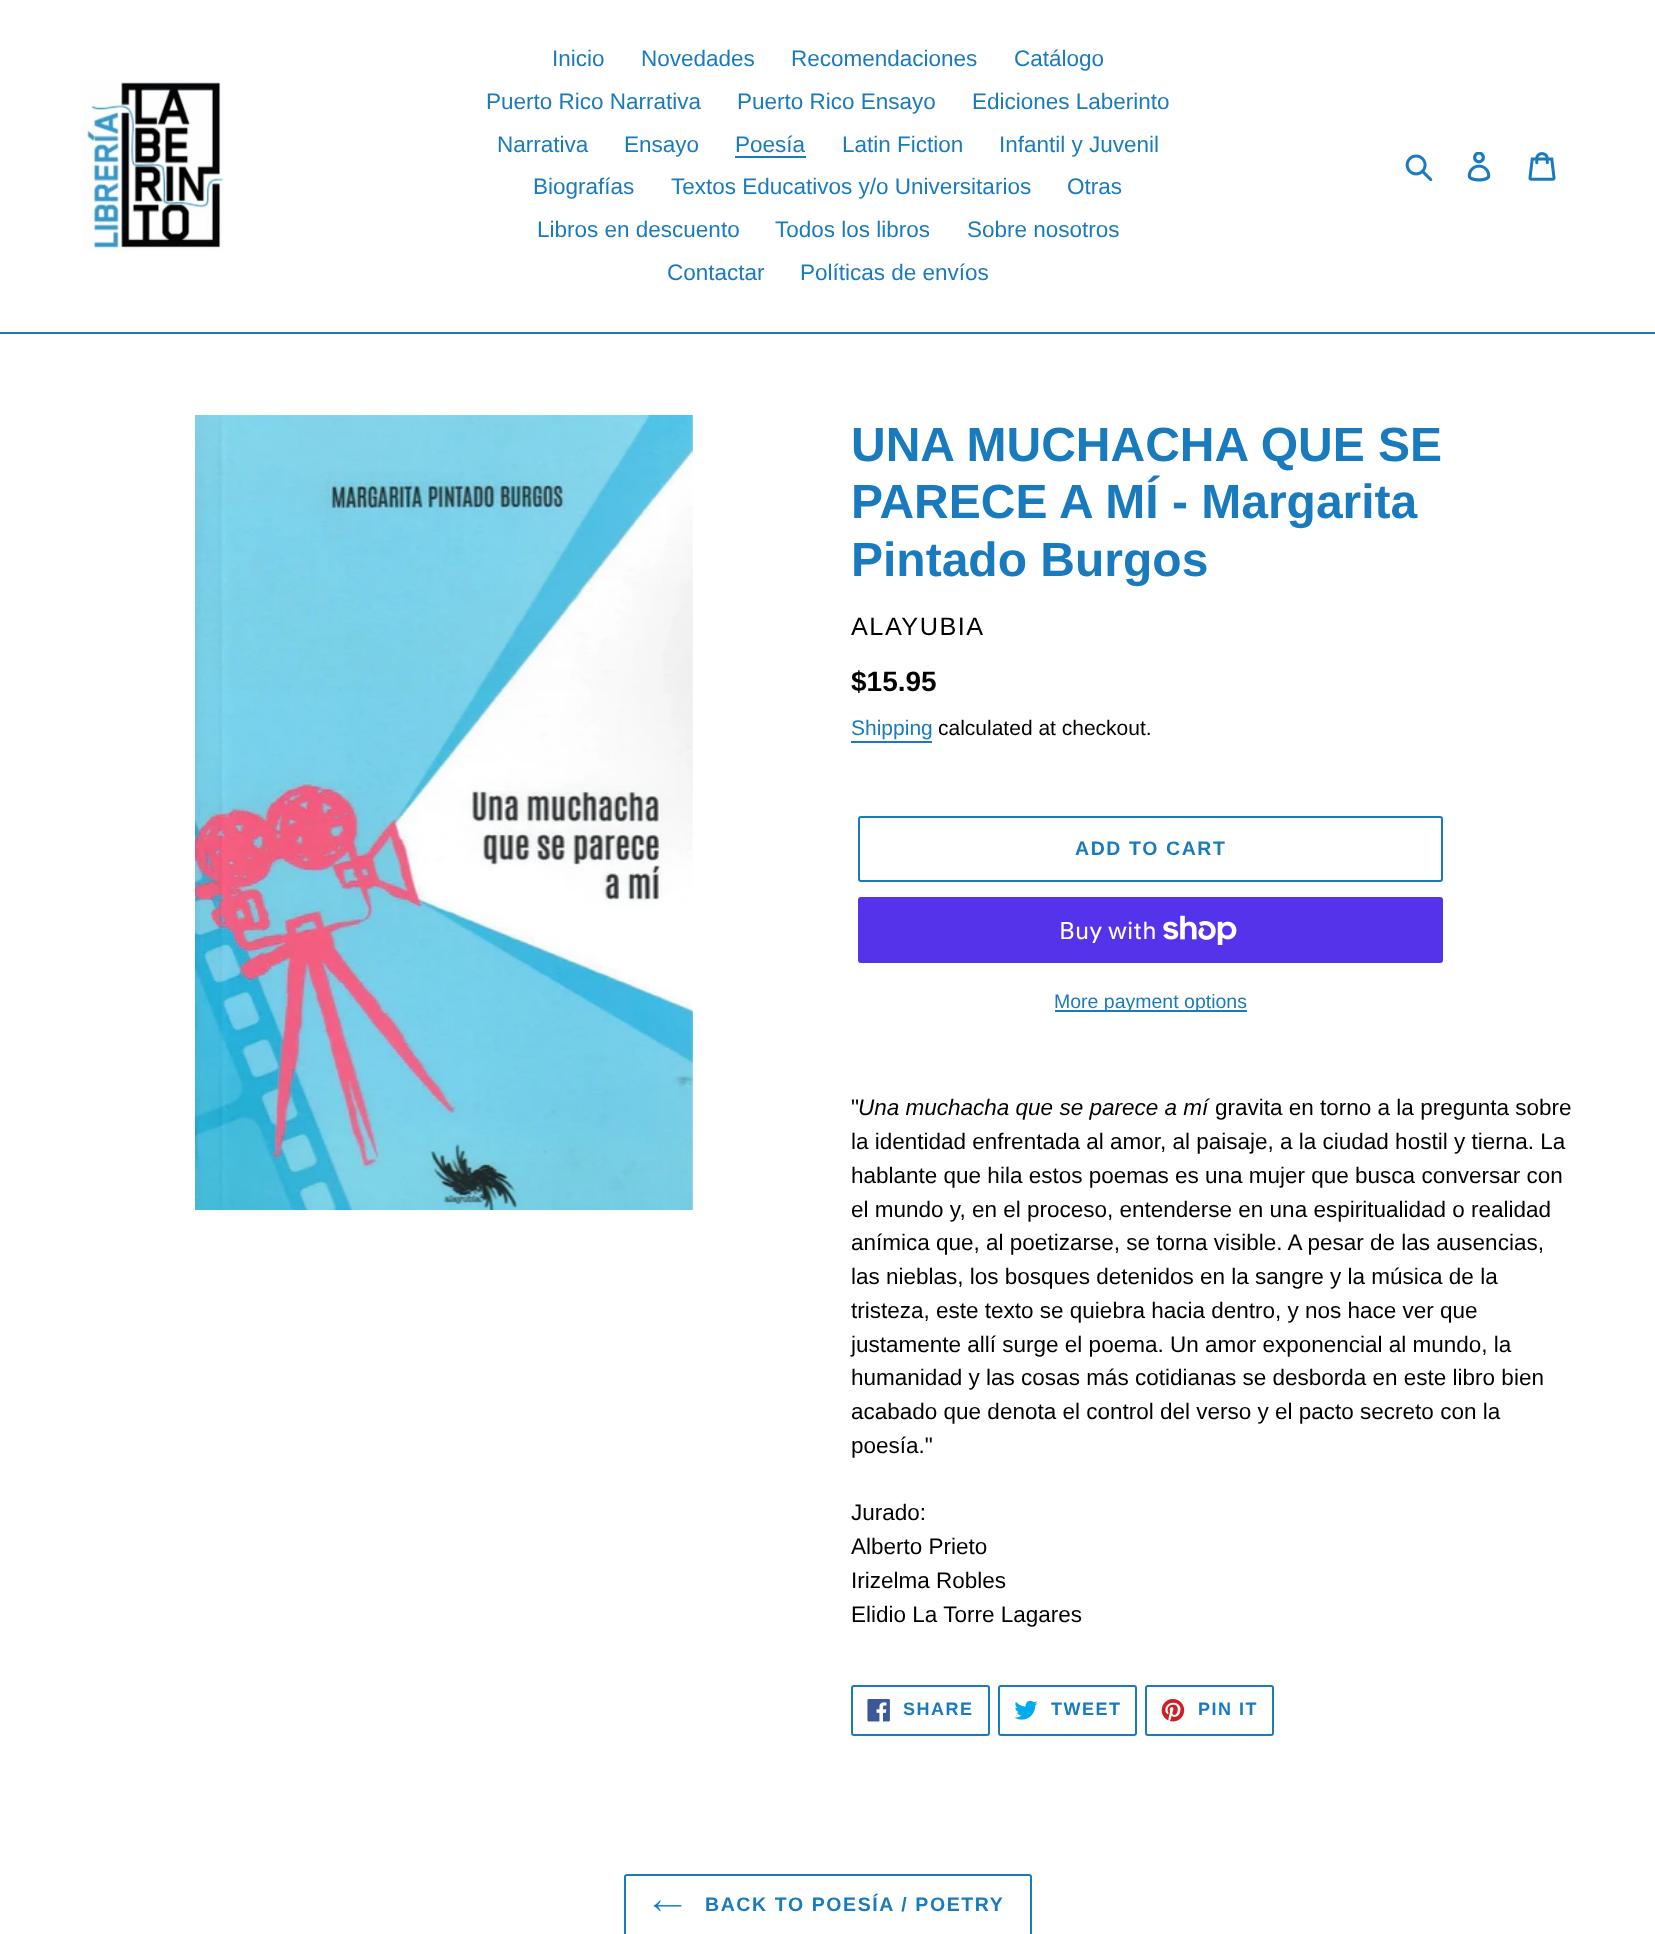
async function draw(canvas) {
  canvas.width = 1655
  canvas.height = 1934
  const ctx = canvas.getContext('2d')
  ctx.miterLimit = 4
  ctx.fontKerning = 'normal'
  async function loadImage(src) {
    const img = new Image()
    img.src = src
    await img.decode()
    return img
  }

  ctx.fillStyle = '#fff'
  ctx.fillRect(0, 0, 1655, 1934)
  ctx.fillStyle = '#197bbd'
  ctx.fillRect(0, 332, 1655, 2)
  ctx.drawImage(await loadImage('image0.png'), 82, 79, 142, 173)
  ctx.font = '22.5px Liberation Sans'
  ctx.fillText('Inicio', 552, 66)
  ctx.fillText('Novedades', 641, 66)
  ctx.fillText('Recomendaciones', 791, 66)
  ctx.fillText('Catálogo', 1014, 66)
  ctx.fillText('Puerto Rico Narrativa', 486, 109)
  ctx.fillText('Puerto Rico Ensayo', 737, 109)
  ctx.fillText('Ediciones Laberinto', 972, 109)
  ctx.fillText('Narrativa', 497, 152)
  ctx.fillText('Ensayo', 624, 152)
  ctx.fillText('Poesía', 735, 152)
  ctx.fillRect(735, 156, 71, 2)
  ctx.fillText('Latin Fiction', 842, 152)
  ctx.fillText('Infantil y Juvenil', 999, 152)
  ctx.fillText('Biografías', 533, 194)
  ctx.fillText('Textos Educativos y/o Universitarios', 671, 194)
  ctx.fillText('Otras', 1067, 194)
  ctx.fillText('Libros en descuento', 537, 237)
  ctx.fillText('Todos los libros', 775, 237)
  ctx.fillText('Sobre nosotros', 967, 237)
  ctx.fillText('Contactar', 667, 280)
  ctx.fillText('Políticas de envíos', 800, 280)
  ctx.drawImage(await loadImage('image1.png'), 1405, 154, 28, 28)
  ctx.drawImage(await loadImage('image2.png'), 1467, 152, 24, 30)
  ctx.drawImage(await loadImage('image3.png'), 1528, 152, 28, 29)
  ctx.drawImage(await loadImage('image4.png'), 195, 415, 498, 795)
  ctx.font = 'bold 48px Liberation Sans'
  ctx.fillText('UNA MUCHACHA QUE SE', 851, 461)
  ctx.fillText('PARECE A MÍ - Margarita', 851, 518)
  ctx.fillText('Pintado Burgos', 851, 576)
  ctx.letterSpacing = '1.5px'
  ctx.font = '25.25px Liberation Sans'
  ctx.fillStyle = '#000'
  ctx.fillText('ALAYUBIA', 851, 635)
  ctx.letterSpacing = '0px'
  ctx.font = 'bold 28px Liberation Sans'
  ctx.fillText('$15.95', 851, 691)
  ctx.font = '21px Liberation Sans'
  ctx.fillStyle = '#197bbd'
  ctx.fillText('Shipping', 851, 735)
  ctx.fillRect(851, 741, 81, 2)
  ctx.fillStyle = '#000'
  ctx.fillText('calculated at checkout.', 938, 735)
  ctx.beginPath()
  ctx.roundRect(859, 817, 583, 64, 2)
  ctx.strokeStyle = '#197bbd'
  ctx.lineWidth = 2
  ctx.stroke()
  ctx.letterSpacing = '1.6px'
  ctx.font = 'bold 19.5px Liberation Sans'
  ctx.fillStyle = '#197bbd'
  ctx.fillText('ADD TO CART', 1075, 855)
  ctx.fillStyle = '#5433eb'
  ctx.beginPath()
  ctx.roundRect(858, 897, 585, 66, 3)
  ctx.fill()
  ctx.letterSpacing = '0px'
  ctx.font = '24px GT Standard'
  ctx.fillStyle = '#fff'
  ctx.fillText('Buy with', 1059, 939)
  ctx.drawImage(await loadImage('image5.png'), 1163, 915, 74, 30)
  ctx.fillStyle = '#197bbd'
  ctx.fillRect(1055, 1010, 192, 2)
  ctx.font = '19.5px Liberation Sans'
  ctx.fillText('More payment options', 1054, 1008)
  ctx.font = '22.5px Liberation Sans'
  ctx.fillStyle = '#000'
  ctx.fillText('"', 851, 1115)
  ctx.font = 'italic 22.5px Liberation Sans'
  ctx.fillText('Una muchacha que se parece a mí', 858, 1115)
  ctx.font = '22.5px Liberation Sans'
  ctx.fillText('gravita en torno a la pregunta sobre', 1215, 1115)
  ctx.fillText('la identidad enfrentada al amor, al paisaje, a la ciudad hostil y tierna. La', 851, 1149)
  ctx.fillText('hablante que hila estos poemas es una mujer que busca conversar con', 851, 1183)
  ctx.fillText('el mundo y, en el proceso, entenderse en una espiritualidad o realidad', 851, 1217)
  ctx.fillText('anímica que, al poetizarse, se torna visible. A pesar de las ausencias,', 851, 1250)
  ctx.fillText('las nieblas, los bosques detenidos en la sangre y la música de la', 851, 1284)
  ctx.fillText('tristeza, este texto se quiebra hacia dentro, y nos hace ver que', 851, 1318)
  ctx.fillText('justamente allí surge el poema. Un amor exponencial al mundo, la', 851, 1352)
  ctx.fillText('humanidad y las cosas más cotidianas se desborda en este libro bien', 851, 1385)
  ctx.fillText('acabado que denota el control del verso y el pacto secreto con la', 851, 1419)
  ctx.fillText('poesía."', 851, 1453)
  ctx.fillText('Jurado:', 851, 1520)
  ctx.fillText('Alberto Prieto', 851, 1554)
  ctx.fillText('Irizelma Robles', 851, 1588)
  ctx.fillText('Elidio La Torre Lagares', 851, 1622)
  ctx.beginPath()
  ctx.roundRect(852, 1686, 137, 49, 2)
  ctx.stroke()
  ctx.drawImage(await loadImage('image6.png'), 867, 1699, 23, 23)
  ctx.letterSpacing = '1.5px'
  ctx.font = 'bold 18px Liberation Sans'
  ctx.fillStyle = '#197bbd'
  ctx.fillText('SHARE', 903, 1715)
  ctx.beginPath()
  ctx.roundRect(999, 1686, 137, 49, 2)
  ctx.stroke()
  ctx.drawImage(await loadImage('image7.png'), 1014, 1700, 24, 20)
  ctx.fillText('TWEET', 1051, 1715)
  ctx.beginPath()
  ctx.roundRect(1146, 1686, 127, 49, 2)
  ctx.stroke()
  ctx.drawImage(await loadImage('image8.png'), 1161, 1699, 24, 23)
  ctx.fillText('PIN IT', 1198, 1715)
  ctx.beginPath()
  ctx.roundRect(625, 1875, 406, 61, 2)
  ctx.stroke()
  ctx.drawImage(await loadImage('image9.png'), 653, 1900, 29, 12)
  ctx.letterSpacing = '1.6px'
  ctx.font = 'bold 19.5px Liberation Sans'
  ctx.fillText('BACK TO POESÍA / POETRY', 705, 1911)
}

draw(document.querySelector('canvas'))
